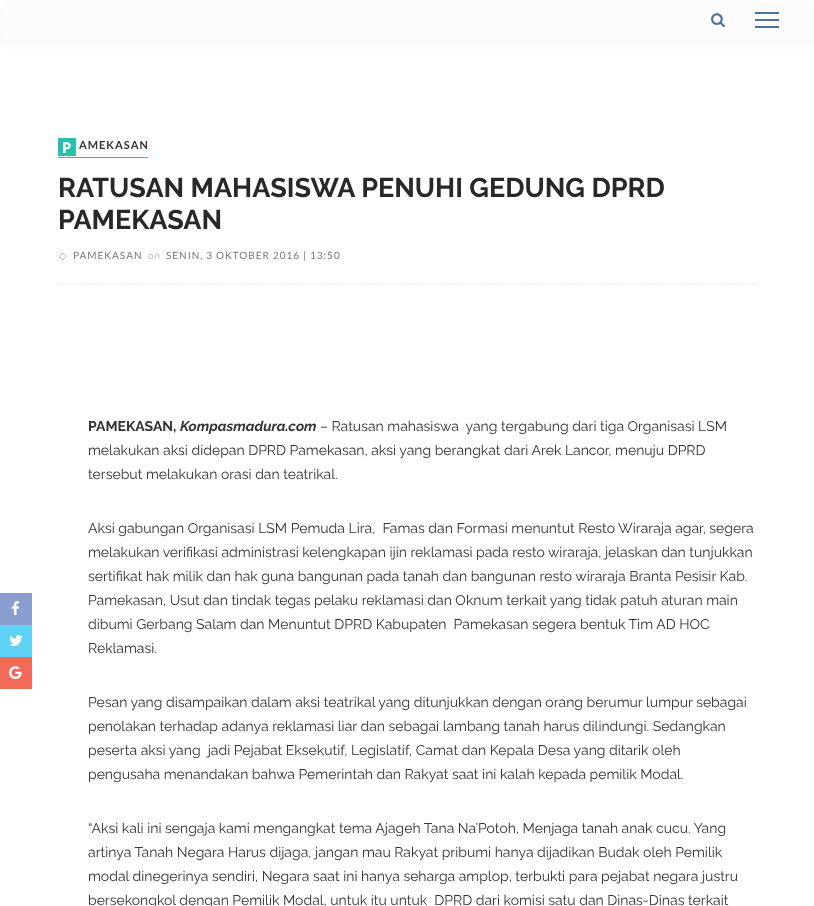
async function draw(canvas) {
  canvas.width = 814
  canvas.height = 906
  const ctx = canvas.getContext('2d')
  ctx.miterLimit = 4
  ctx.fontKerning = 'normal'
  async function loadImage(src) {
    const img = new Image()
    img.src = src
    await img.decode()
    return img
  }

  ctx.fillStyle = '#fff'
  ctx.fillRect(0, 0, 814, 906)
  ctx.fillStyle = '#0000000d'
  ctx.filter = 'blur(5px)'
  ctx.beginPath()
  ctx.rect(3, 6, 810, 36)
  ctx.fill()
  ctx.filter = 'none'
  ctx.fillStyle = '#fcfcfc'
  ctx.fillRect(2, 5, 812, 35)
  ctx.drawImage(await loadImage('image0.png'), 711, 13, 14, 15)
  ctx.fillStyle = '#4c70a7'
  ctx.fillRect(755, 19, 24, 2)
  ctx.fillRect(755, 12, 24, 2)
  ctx.fillRect(755, 26, 24, 2)
  ctx.beginPath()
  ctx.moveTo(58, 283.5)
  ctx.lineTo(756, 283.5)
  ctx.strokeStyle = '#eee'
  ctx.setLineDash([3, 2])
  ctx.stroke()
  ctx.fillStyle = '#29bfad'
  ctx.fillRect(58, 157, 90, 1)
  ctx.fillRect(58, 138, 18, 18)
  ctx.font = 'bold 15px Noto Sans'
  ctx.fillStyle = '#fff'
  ctx.fillText('P', 62, 153)
  ctx.letterSpacing = '1px'
  ctx.font = 'bold 11px Lato'
  ctx.fillStyle = '#333'
  ctx.fillText('AMEKASAN', 79, 149)
  ctx.letterSpacing = '0px'
  ctx.font = 'bold 27px Raleway'
  ctx.fillStyle = '#282828'
  ctx.fillText('RATUSAN MAHASISWA PENUHI GEDUNG DPRD', 58, 197)
  ctx.fillText('PAMEKASAN', 58, 229)
  ctx.beginPath()
  ctx.moveTo(63, 253)
  ctx.lineTo(66.5, 256.5)
  ctx.lineTo(63, 260)
  ctx.lineTo(59.5, 256.5)
  ctx.closePath()
  ctx.strokeStyle = '#bbb'
  ctx.setLineDash([])
  ctx.stroke()
  ctx.letterSpacing = '1px'
  ctx.font = '10px Lato'
  ctx.fillStyle = '#777'
  ctx.fillText('PAMEKASAN', 73, 259)
  ctx.fillStyle = '#bbb'
  ctx.fillText('on', 148, 259)
  ctx.fillStyle = '#777'
  ctx.fillText('SENIN, 3 OKTOBER 2016 | 13:50', 166, 259)
  ctx.fillStyle = '#899dce'
  ctx.fillRect(0, 593, 32, 32)
  ctx.drawImage(await loadImage('image1.png'), 11, 601, 8, 15)
  ctx.fillStyle = '#60d2f5'
  ctx.fillRect(0, 625, 32, 32)
  ctx.drawImage(await loadImage('image2.png'), 9, 635, 14, 11)
  ctx.fillStyle = '#f16a5a'
  ctx.fillRect(0, 657, 32, 32)
  ctx.drawImage(await loadImage('image3.png'), 9, 666, 13, 14)
  ctx.letterSpacing = '0px'
  ctx.font = 'bold 14px Raleway'
  ctx.fillStyle = '#333'
  ctx.fillText('PAMEKASAN,', 88, 431)
  ctx.font = 'italic bold 14px Raleway'
  ctx.fillText('Kompasmadura.com', 180, 431)
  ctx.font = '14px Raleway'
  ctx.fillText('– Ratusan mahasiswa  yang tergabung dari tiga Organisasi LSM', 320, 431)
  ctx.fillText('melakukan aksi didepan DPRD Pamekasan, aksi yang berangkat dari Arek Lancor, menuju DPRD', 88, 455)
  ctx.fillText('tersebut melakukan orasi dan teatrikal.', 88, 479)
  ctx.fillText('Aksi gabungan Organisasi LSM Pemuda Lira,  Famas dan Formasi menuntut Resto Wiraraja agar, segera', 88, 533)
  ctx.fillText('melakukan verifikasi administrasi kelengkapan ijin reklamasi pada resto wiraraja, jelaskan dan tunjukkan', 88, 557)
  ctx.fillText('sertifikat hak milik dan hak guna bangunan pada tanah dan bangunan resto wiraraja Branta Pesisir Kab.', 88, 581)
  ctx.fillText('Pamekasan, Usut dan tindak tegas pelaku reklamasi dan Oknum terkait yang tidak patuh aturan main', 88, 605)
  ctx.fillText('dibumi Gerbang Salam dan Menuntut DPRD Kabupaten  Pamekasan segera bentuk Tim AD HOC', 88, 629)
  ctx.fillText('Reklamasi.', 88, 653)
  ctx.fillText('Pesan yang disampaikan dalam aksi teatrikal yang ditunjukkan dengan orang berumur lumpur sebagai', 88, 707)
  ctx.fillText('penolakan terhadap adanya reklamasi liar dan sebagai lambang tanah harus dilindungi. Sedangkan', 88, 731)
  ctx.fillText('peserta aksi yang  jadi Pejabat Eksekutif, Legislatif, Camat dan Kepala Desa yang ditarik oleh', 88, 755)
  ctx.fillText('pengusaha menandakan bahwa Pemerintah dan Rakyat saat ini kalah kepada pemilik Modal.', 88, 779)
  ctx.fillText('“Aksi kali ini sengaja kami mengangkat tema Ajageh Tana Na’Potoh, Menjaga tanah anak cucu. Yang', 88, 833)
  ctx.fillText('artinya Tanah Negara Harus dijaga, jangan mau Rakyat pribumi hanya dijadikan Budak oleh Pemilik', 88, 857)
  ctx.fillText('modal dinegerinya sendiri, Negara saat ini hanya seharga amplop, terbukti para pejabat negara justru', 88, 881)
  ctx.fillText('bersekongkol dengan Pemilik Modal, untuk itu untuk  DPRD dari komisi satu dan Dinas-Dinas terkait', 88, 905)
}

draw(document.querySelector('canvas'))
